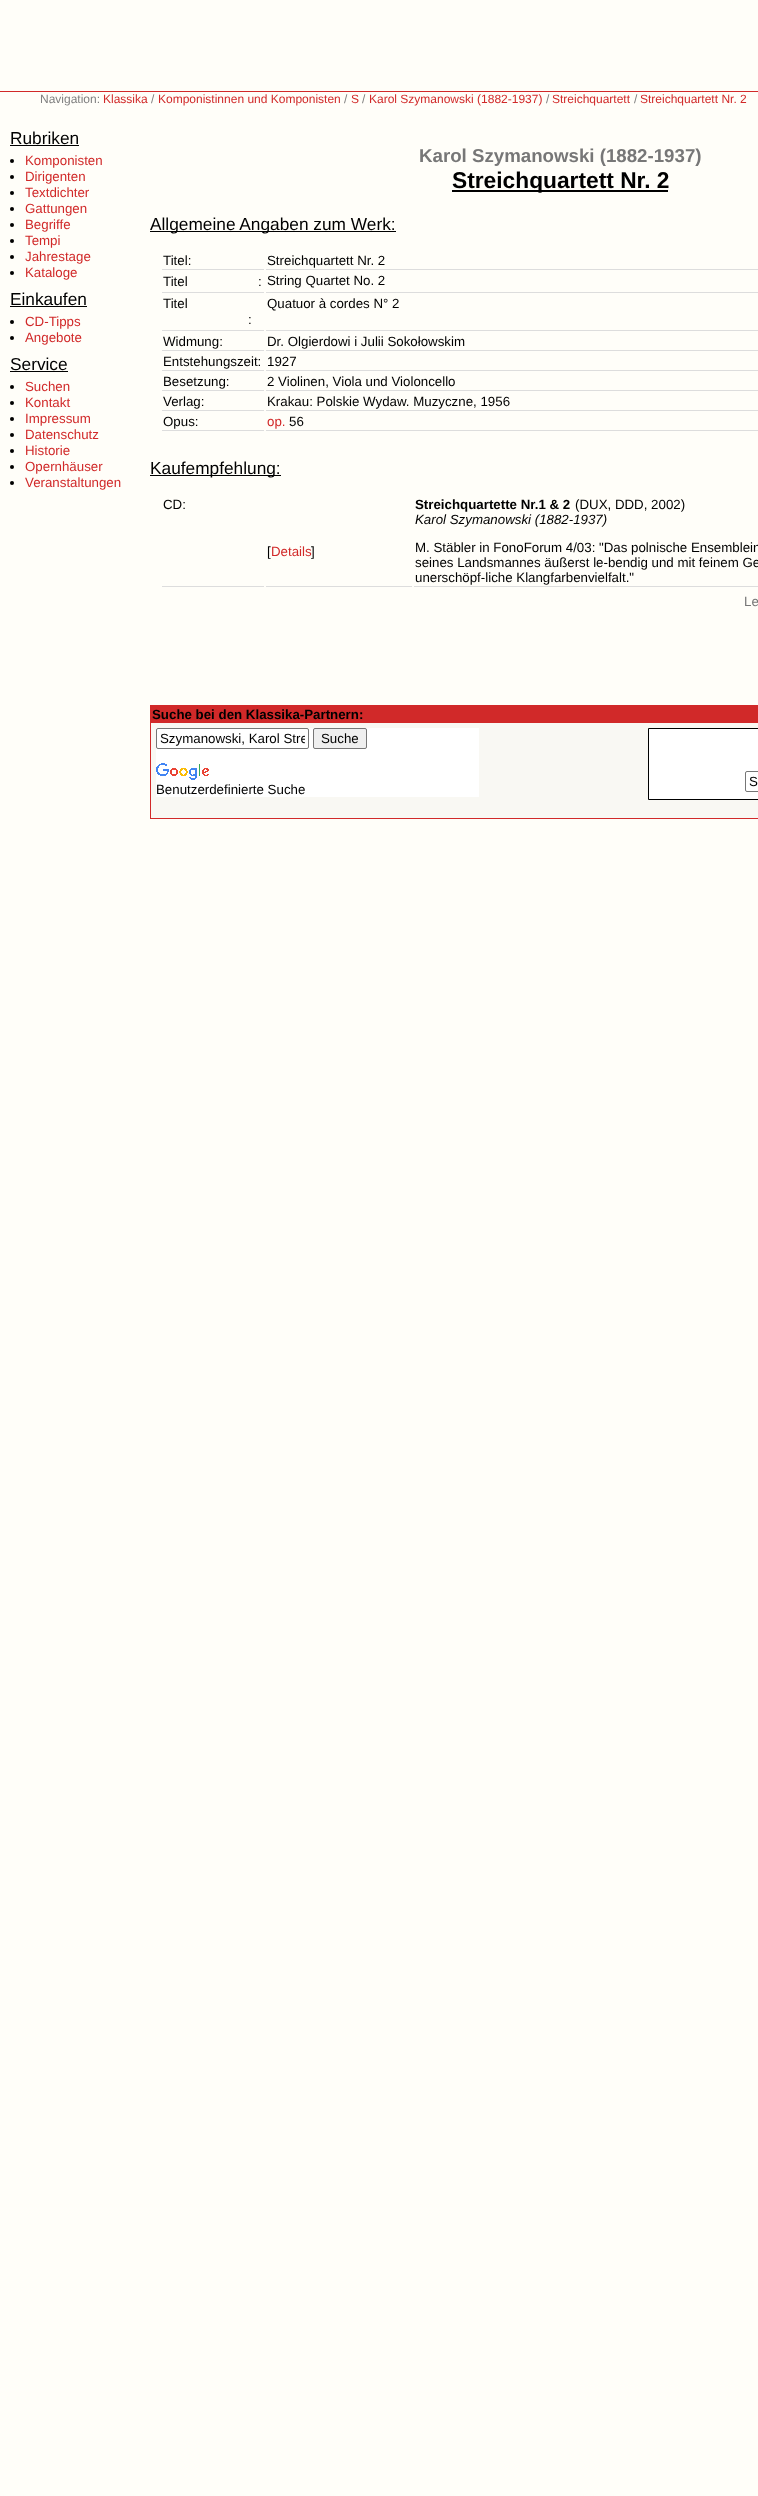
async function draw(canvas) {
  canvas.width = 758
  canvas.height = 2496
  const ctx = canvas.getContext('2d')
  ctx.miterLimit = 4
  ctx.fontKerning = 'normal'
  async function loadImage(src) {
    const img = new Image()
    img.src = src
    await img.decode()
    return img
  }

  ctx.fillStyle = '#fffef9'
  ctx.fillRect(0, 0, 758, 2496)
  ctx.fillStyle = '#d12929'
  ctx.fillRect(0, 91, 758, 1)
  ctx.font = '12px Liberation Sans'
  ctx.fillStyle = '#808080'
  ctx.fillText('Navigation:', 40, 103)
  ctx.fillStyle = '#d12929'
  ctx.fillText('Klassika', 103, 103)
  ctx.fillStyle = '#808080'
  ctx.fillText('/', 151, 103)
  ctx.fillStyle = '#d12929'
  ctx.fillText('Komponistinnen und Komponisten', 158, 103)
  ctx.fillStyle = '#808080'
  ctx.fillText('/', 344, 103)
  ctx.fillStyle = '#d12929'
  ctx.fillText('S', 351, 103)
  ctx.fillStyle = '#808080'
  ctx.fillText('/', 362, 103)
  ctx.fillStyle = '#d12929'
  ctx.fillText('Karol Szymanowski (1882-1937)', 369, 103)
  ctx.fillStyle = '#808080'
  ctx.fillText('/', 546, 103)
  ctx.fillStyle = '#d12929'
  ctx.fillText('Streichquartett', 552, 103)
  ctx.fillStyle = '#808080'
  ctx.fillText('/', 634, 103)
  ctx.fillStyle = '#d12929'
  ctx.fillText('Streichquartett Nr. 2', 640, 103)
  ctx.font = '17.3px Liberation Sans'
  ctx.fillStyle = '#000'
  ctx.fillText('Rubriken', 10, 144)
  ctx.fillRect(10, 145, 69, 1)
  ctx.beginPath()
  ctx.arc(12, 161, 2, 0, 2 * Math.PI)
  ctx.fill()
  ctx.font = '13.3px Liberation Sans'
  ctx.fillStyle = '#d12929'
  ctx.fillText('Komponisten', 25, 165)
  ctx.fillStyle = '#000'
  ctx.beginPath()
  ctx.arc(12, 177, 2, 0, 2 * Math.PI)
  ctx.fill()
  ctx.fillStyle = '#d12929'
  ctx.fillText('Dirigenten', 25, 181)
  ctx.fillStyle = '#000'
  ctx.beginPath()
  ctx.arc(12, 193, 2, 0, 2 * Math.PI)
  ctx.fill()
  ctx.fillStyle = '#d12929'
  ctx.fillText('Textdichter', 25, 197)
  ctx.fillStyle = '#000'
  ctx.beginPath()
  ctx.arc(12, 209, 2, 0, 2 * Math.PI)
  ctx.fill()
  ctx.fillStyle = '#d12929'
  ctx.fillText('Gattungen', 25, 213)
  ctx.fillStyle = '#000'
  ctx.beginPath()
  ctx.arc(12, 225, 2, 0, 2 * Math.PI)
  ctx.fill()
  ctx.fillStyle = '#d12929'
  ctx.fillText('Begriffe', 25, 229)
  ctx.fillStyle = '#000'
  ctx.beginPath()
  ctx.arc(12, 241, 2, 0, 2 * Math.PI)
  ctx.fill()
  ctx.fillStyle = '#d12929'
  ctx.fillText('Tempi', 25, 245)
  ctx.fillStyle = '#000'
  ctx.beginPath()
  ctx.arc(12, 257, 2, 0, 2 * Math.PI)
  ctx.fill()
  ctx.fillStyle = '#d12929'
  ctx.fillText('Jahrestage', 25, 261)
  ctx.fillStyle = '#000'
  ctx.beginPath()
  ctx.arc(12, 273, 2, 0, 2 * Math.PI)
  ctx.fill()
  ctx.fillStyle = '#d12929'
  ctx.fillText('Kataloge', 25, 277)
  ctx.font = '17.3px Liberation Sans'
  ctx.fillStyle = '#000'
  ctx.fillText('Einkaufen', 10, 305)
  ctx.fillRect(10, 306, 77, 1)
  ctx.beginPath()
  ctx.arc(12, 322, 2, 0, 2 * Math.PI)
  ctx.fill()
  ctx.font = '13.3px Liberation Sans'
  ctx.fillStyle = '#d12929'
  ctx.fillText('CD-Tipps', 25, 326)
  ctx.fillStyle = '#000'
  ctx.beginPath()
  ctx.arc(12, 338, 2, 0, 2 * Math.PI)
  ctx.fill()
  ctx.fillStyle = '#d12929'
  ctx.fillText('Angebote', 25, 342)
  ctx.font = '17.3px Liberation Sans'
  ctx.fillStyle = '#000'
  ctx.fillText('Service', 10, 370)
  ctx.fillRect(10, 371, 58, 1)
  ctx.beginPath()
  ctx.arc(12, 387, 2, 0, 2 * Math.PI)
  ctx.fill()
  ctx.font = '13.3px Liberation Sans'
  ctx.fillStyle = '#d12929'
  ctx.fillText('Suchen', 25, 391)
  ctx.fillStyle = '#000'
  ctx.beginPath()
  ctx.arc(12, 403, 2, 0, 2 * Math.PI)
  ctx.fill()
  ctx.fillStyle = '#d12929'
  ctx.fillText('Kontakt', 25, 407)
  ctx.fillStyle = '#000'
  ctx.beginPath()
  ctx.arc(12, 419, 2, 0, 2 * Math.PI)
  ctx.fill()
  ctx.fillStyle = '#d12929'
  ctx.fillText('Impressum', 25, 423)
  ctx.fillStyle = '#000'
  ctx.beginPath()
  ctx.arc(12, 435, 2, 0, 2 * Math.PI)
  ctx.fill()
  ctx.fillStyle = '#d12929'
  ctx.fillText('Datenschutz', 25, 439)
  ctx.fillStyle = '#000'
  ctx.beginPath()
  ctx.arc(12, 451, 2, 0, 2 * Math.PI)
  ctx.fill()
  ctx.fillStyle = '#d12929'
  ctx.fillText('Historie', 25, 455)
  ctx.fillStyle = '#000'
  ctx.beginPath()
  ctx.arc(12, 467, 2, 0, 2 * Math.PI)
  ctx.fill()
  ctx.fillStyle = '#d12929'
  ctx.fillText('Opernhäuser', 25, 471)
  ctx.fillStyle = '#000'
  ctx.beginPath()
  ctx.arc(12, 483, 2, 0, 2 * Math.PI)
  ctx.fill()
  ctx.fillStyle = '#d12929'
  ctx.fillText('Veranstaltungen', 25, 487)
  ctx.font = 'bold 18.7px Liberation Sans'
  ctx.fillStyle = '#777'
  ctx.fillText('Karol Szymanowski (1882-1937)', 419, 162)
  ctx.fillStyle = '#000'
  ctx.fillRect(452, 190, 216, 2)
  ctx.font = 'bold 22.75px Liberation Sans'
  ctx.fillText('Streichquartett Nr. 2', 452, 188)
  ctx.fillRect(150, 231, 246, 1)
  ctx.font = '17.3px Liberation Sans'
  ctx.fillText('Allgemeine Angaben zum Werk:', 150, 230)
  ctx.fillStyle = '#ddd'
  ctx.fillRect(162, 269, 102, 1)
  ctx.font = '13.3px Liberation Sans'
  ctx.fillStyle = '#000'
  ctx.fillText('Titel:', 163, 265)
  ctx.fillStyle = '#ddd'
  ctx.fillRect(266, 269, 492, 1)
  ctx.fillStyle = '#000'
  ctx.fillText('Streichquartett Nr. 2', 267, 265)
  ctx.fillStyle = '#ddd'
  ctx.fillRect(162, 292, 102, 1)
  ctx.fillStyle = '#000'
  ctx.fillText('Titel', 163, 286)
  ctx.fillText(':', 258, 286)
  ctx.fillStyle = '#ddd'
  ctx.fillRect(266, 292, 492, 1)
  ctx.fillStyle = '#000'
  ctx.fillText('String Quartet No. 2', 267, 285)
  ctx.fillStyle = '#ddd'
  ctx.fillRect(162, 330, 102, 1)
  ctx.fillStyle = '#000'
  ctx.fillText('Titel', 163, 308)
  ctx.fillText(':', 248, 324)
  ctx.fillStyle = '#ddd'
  ctx.fillRect(266, 330, 492, 1)
  ctx.fillStyle = '#000'
  ctx.fillText('Quatuor à cordes N° 2', 267, 308)
  ctx.fillStyle = '#ddd'
  ctx.fillRect(162, 350, 102, 1)
  ctx.fillStyle = '#000'
  ctx.fillText('Widmung:', 163, 346)
  ctx.fillStyle = '#ddd'
  ctx.fillRect(266, 350, 492, 1)
  ctx.fillStyle = '#000'
  ctx.fillText('Dr. Olgierdowi i Julii Sokołowskim', 267, 346)
  ctx.fillStyle = '#ddd'
  ctx.fillRect(162, 370, 102, 1)
  ctx.fillStyle = '#000'
  ctx.fillText('Entstehungszeit:', 163, 366)
  ctx.fillStyle = '#ddd'
  ctx.fillRect(266, 370, 492, 1)
  ctx.fillStyle = '#000'
  ctx.fillText('1927', 267, 366)
  ctx.fillStyle = '#ddd'
  ctx.fillRect(162, 390, 102, 1)
  ctx.fillStyle = '#000'
  ctx.fillText('Besetzung:', 163, 386)
  ctx.fillStyle = '#ddd'
  ctx.fillRect(266, 390, 492, 1)
  ctx.fillStyle = '#000'
  ctx.fillText('2 Violinen, Viola und Violoncello', 267, 386)
  ctx.fillStyle = '#ddd'
  ctx.fillRect(162, 410, 102, 1)
  ctx.fillStyle = '#000'
  ctx.fillText('Verlag:', 163, 406)
  ctx.fillStyle = '#ddd'
  ctx.fillRect(266, 410, 492, 1)
  ctx.fillStyle = '#000'
  ctx.fillText('Krakau: Polskie Wydaw. Muzyczne, 1956', 267, 406)
  ctx.fillStyle = '#ddd'
  ctx.fillRect(162, 430, 102, 1)
  ctx.fillStyle = '#000'
  ctx.fillText('Opus:', 163, 426)
  ctx.fillStyle = '#ddd'
  ctx.fillRect(266, 430, 492, 1)
  ctx.fillStyle = '#d12929'
  ctx.fillText('op.', 267, 426)
  ctx.fillStyle = '#000'
  ctx.fillText('56', 289, 426)
  ctx.fillRect(150, 475, 131, 1)
  ctx.font = '17.3px Liberation Sans'
  ctx.fillText('Kaufempfehlung:', 150, 474)
  ctx.fillStyle = '#ddd'
  ctx.fillRect(162, 586, 102, 1)
  ctx.font = '13.3px Liberation Sans'
  ctx.fillStyle = '#000'
  ctx.fillText('CD:', 163, 509)
  ctx.fillStyle = '#ddd'
  ctx.fillRect(266, 586, 146, 1)
  ctx.fillStyle = '#000'
  ctx.fillText('[', 267, 556)
  ctx.fillStyle = '#d12929'
  ctx.fillText('Details', 271, 556)
  ctx.fillStyle = '#000'
  ctx.fillText(']', 311, 556)
  ctx.fillStyle = '#ddd'
  ctx.fillRect(414, 586, 344, 1)
  ctx.font = 'bold 13.3px Liberation Sans'
  ctx.fillStyle = '#000'
  ctx.fillText('Streichquartette Nr.1 & 2', 415, 509)
  ctx.font = '13.3px Liberation Sans'
  ctx.fillText('(DUX, DDD, 2002)', 575, 509)
  ctx.font = 'italic 13.3px Liberation Sans'
  ctx.fillText('Karol Szymanowski (1882-1937)', 415, 524)
  ctx.font = '13.3px Liberation Sans'
  ctx.fillText('M. Stäbler in FonoForum 4/03: "Das polnische Ensemblein', 415, 552)
  ctx.fillText('seines Landsmannes äußerst le-bendig und mit feinem Ge', 415, 567)
  ctx.fillText('unerschöpf-liche Klangfarbenvielfalt."', 415, 582)
  ctx.fillStyle = '#777'
  ctx.fillText('Le', 744, 606)
  ctx.fillStyle = '#d12929'
  ctx.fillRect(150, 705, 608, 1)
  ctx.fillRect(150, 818, 608, 1)
  ctx.fillRect(150, 705, 1, 114)
  ctx.fillRect(151, 706, 607, 17)
  ctx.font = 'bold 13.3px Liberation Sans'
  ctx.fillStyle = '#000'
  ctx.fillText('Suche bei den Klassika-Partnern:', 152, 719)
  ctx.fillStyle = '#f9f8f3'
  ctx.fillRect(151, 723, 607, 95)
  ctx.fillStyle = '#fff'
  ctx.fillRect(156, 728, 323, 69)
  ctx.beginPath()
  ctx.roundRect(156.5, 728.5, 152, 20, 1.5)
  ctx.strokeStyle = '#767676'
  ctx.stroke()
  ctx.save()
  ctx.beginPath()
  ctx.rect(160, 731, 145, 15)
  ctx.clip()
  ctx.font = '13.3px Liberation Sans'
  ctx.fillStyle = '#000'
  ctx.fillText('Szymanowski, Karol Stre', 160, 743)
  ctx.restore()
  ctx.fillStyle = '#efefef'
  ctx.beginPath()
  ctx.roundRect(313.5, 728.5, 53, 20, 1.5)
  ctx.fill()
  ctx.stroke()
  ctx.font = '13.3px Liberation Sans'
  ctx.fillStyle = '#000'
  ctx.fillText('Suche', 321, 743)
  ctx.drawImage(await loadImage('image0.png'), 156, 763, 53, 17)
  ctx.fillText('Benutzerdefinierte Suche', 156, 794)
  ctx.fillStyle = '#fff'
  ctx.beginPath()
  ctx.rect(648.5, 728.5, 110, 71)
  ctx.fill()
  ctx.strokeStyle = '#000'
  ctx.stroke()
  ctx.beginPath()
  ctx.roundRect(745.5, 771.5, 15, 20, 1.5)
  ctx.strokeStyle = '#767676'
  ctx.stroke()
  ctx.fillStyle = '#000'
  ctx.fillText('S', 749, 786)
}

draw(document.querySelector('canvas'))
